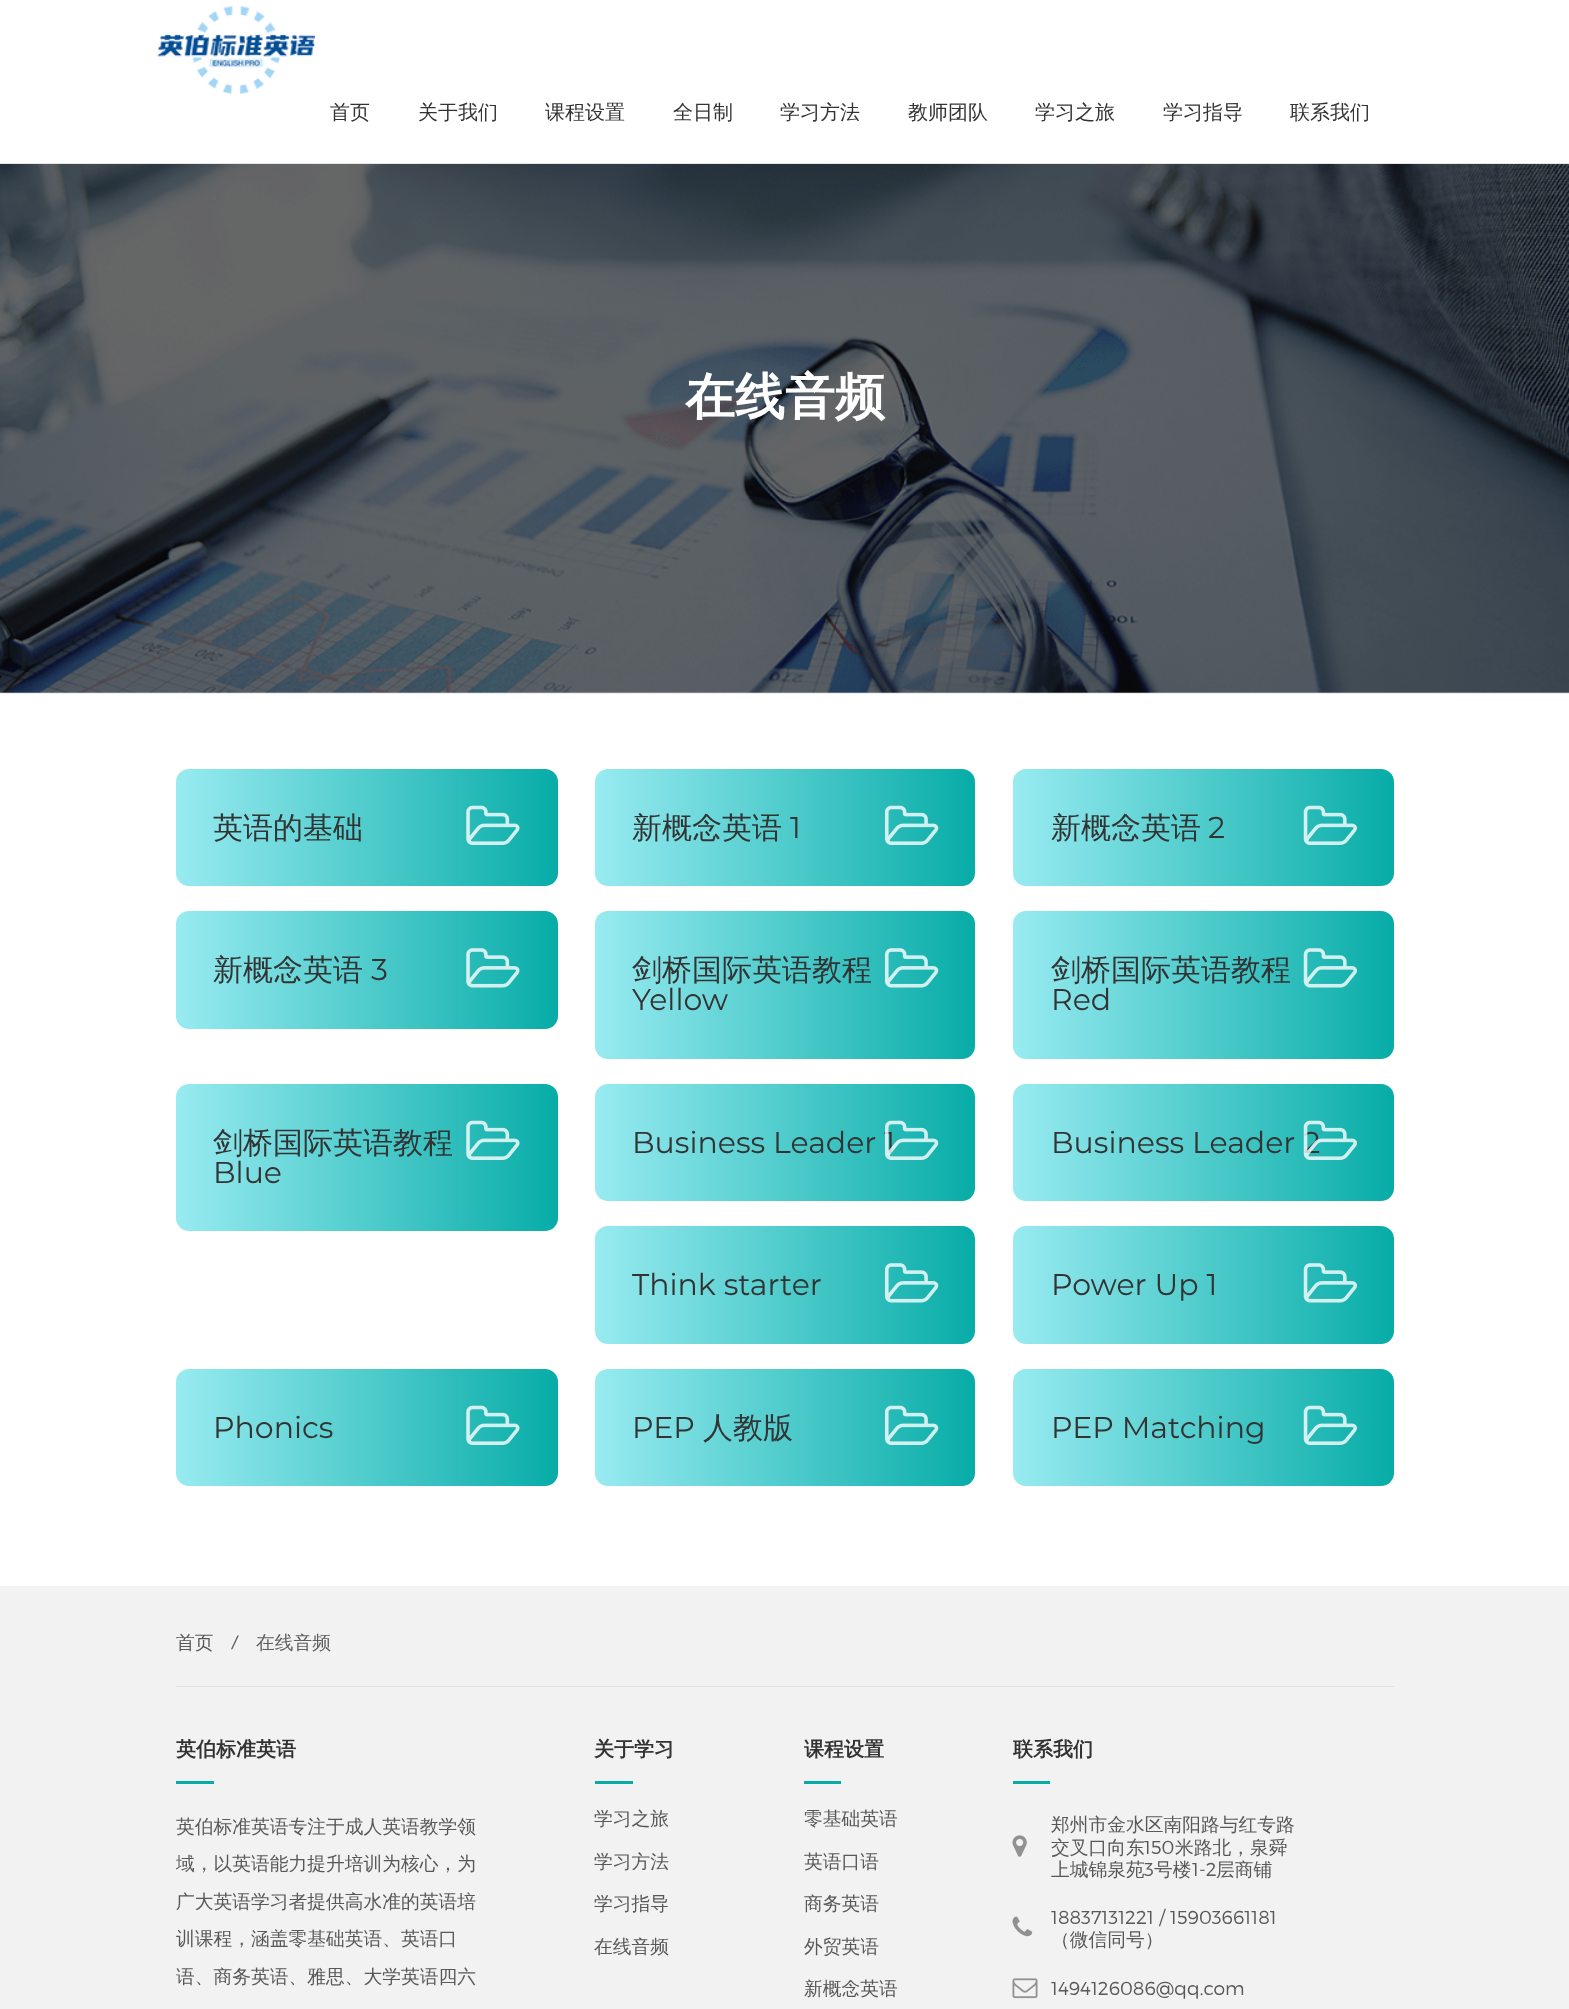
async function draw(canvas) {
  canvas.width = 1569
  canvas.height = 2009
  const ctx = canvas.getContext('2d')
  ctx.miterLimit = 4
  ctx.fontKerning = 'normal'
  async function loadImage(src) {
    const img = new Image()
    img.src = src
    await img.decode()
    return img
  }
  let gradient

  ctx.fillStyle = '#fff'
  ctx.fillRect(0, 0, 1569, 2009)
  ctx.fillStyle = '#e6e6e6'
  ctx.fillRect(0, 163, 1569, 1)
  ctx.drawImage(await loadImage('image0.png'), 157, 6, 158, 88)
  ctx.font = '500 20px WenQuanYi Zen Hei'
  ctx.fillStyle = '#333'
  ctx.fillText('首页', 330, 119)
  ctx.fillText('关于我们', 418, 119)
  ctx.fillText('课程设置', 545, 119)
  ctx.fillText('全日制', 673, 119)
  ctx.fillText('学习方法', 780, 119)
  ctx.fillText('教师团队', 908, 119)
  ctx.fillText('学习之旅', 1035, 119)
  ctx.fillText('学习指导', 1163, 119)
  ctx.fillText('联系我们', 1290, 119)
  ctx.drawImage(await loadImage('image1.png'), 0, 164, 1569, 529)
  ctx.fillStyle = '#eee'
  ctx.fillRect(0, 693, 1569, 1)
  ctx.font = 'bold 50px WenQuanYi Zen Hei'
  ctx.fillStyle = '#fff'
  ctx.fillText('在线音频', 685, 414)
  gradient = ctx.createLinearGradient(176, 828, 558, 828)
  gradient.addColorStop(0, '#98ebf1')
  gradient.addColorStop(1, '#07aca7')
  ctx.fillStyle = gradient
  ctx.beginPath()
  ctx.roundRect(176, 769, 382, 117, 13)
  ctx.fill()
  ctx.font = '500 30px WenQuanYi Zen Hei'
  ctx.fillStyle = '#333'
  ctx.fillText('英语的基础', 213, 838)
  ctx.drawImage(await loadImage('image2.png'), 466, 805, 54, 40)
  gradient = ctx.createLinearGradient(595, 828, 975, 828)
  gradient.addColorStop(0, '#98ebf1')
  gradient.addColorStop(1, '#07aca7')
  ctx.fillStyle = gradient
  ctx.beginPath()
  ctx.roundRect(595, 769, 380, 117, 13)
  ctx.fill()
  ctx.fillStyle = '#333'
  ctx.fillText('新概念英语', 632, 838)
  ctx.font = '30px Montserrat'
  ctx.fillText('1', 790, 838)
  ctx.drawImage(await loadImage('image3.png'), 885, 805, 54, 40)
  gradient = ctx.createLinearGradient(1013, 828, 1394, 828)
  gradient.addColorStop(0, '#98ebf1')
  gradient.addColorStop(1, '#07aca7')
  ctx.fillStyle = gradient
  ctx.beginPath()
  ctx.roundRect(1013, 769, 381, 117, 13)
  ctx.fill()
  ctx.font = '500 30px WenQuanYi Zen Hei'
  ctx.fillStyle = '#333'
  ctx.fillText('新概念英语', 1051, 838)
  ctx.font = '30px Montserrat'
  ctx.fillText('2', 1208, 838)
  ctx.drawImage(await loadImage('image4.png'), 1303, 805, 54, 40)
  gradient = ctx.createLinearGradient(176, 970, 558, 970)
  gradient.addColorStop(0, '#98ebf1')
  gradient.addColorStop(1, '#07aca7')
  ctx.fillStyle = gradient
  ctx.beginPath()
  ctx.roundRect(176, 911, 382, 118, 13)
  ctx.fill()
  ctx.font = '500 30px WenQuanYi Zen Hei'
  ctx.fillStyle = '#333'
  ctx.fillText('新概念英语', 213, 980)
  ctx.font = '30px Montserrat'
  ctx.fillText('3', 371, 980)
  ctx.drawImage(await loadImage('image5.png'), 466, 948, 54, 40)
  gradient = ctx.createLinearGradient(595, 985, 975, 985)
  gradient.addColorStop(0, '#98ebf1')
  gradient.addColorStop(1, '#07aca7')
  ctx.fillStyle = gradient
  ctx.beginPath()
  ctx.roundRect(595, 911, 380, 148, 13)
  ctx.fill()
  ctx.font = '500 30px WenQuanYi Zen Hei'
  ctx.fillStyle = '#333'
  ctx.fillText('剑桥国际英语教程', 632, 980)
  ctx.drawImage(await loadImage('image6.png'), 885, 948, 54, 40)
  ctx.font = '30px Montserrat'
  ctx.fillText('Yellow', 632, 1010)
  gradient = ctx.createLinearGradient(1013, 985, 1394, 985)
  gradient.addColorStop(0, '#98ebf1')
  gradient.addColorStop(1, '#07aca7')
  ctx.fillStyle = gradient
  ctx.beginPath()
  ctx.roundRect(1013, 911, 381, 148, 13)
  ctx.fill()
  ctx.font = '500 30px WenQuanYi Zen Hei'
  ctx.fillStyle = '#333'
  ctx.fillText('剑桥国际英语教程', 1051, 980)
  ctx.drawImage(await loadImage('image7.png'), 1303, 948, 54, 40)
  ctx.font = '30px Montserrat'
  ctx.fillText('Red', 1051, 1010)
  gradient = ctx.createLinearGradient(176, 1158, 558, 1158)
  gradient.addColorStop(0, '#98ebf1')
  gradient.addColorStop(1, '#07aca7')
  ctx.fillStyle = gradient
  ctx.beginPath()
  ctx.roundRect(176, 1084, 382, 147, 13)
  ctx.fill()
  ctx.font = '500 30px WenQuanYi Zen Hei'
  ctx.fillStyle = '#333'
  ctx.fillText('剑桥国际英语教程', 213, 1153)
  ctx.drawImage(await loadImage('image2.png'), 466, 1120, 54, 40)
  ctx.font = '30px Montserrat'
  ctx.fillText('Blue', 213, 1183)
  gradient = ctx.createLinearGradient(595, 1143, 975, 1143)
  gradient.addColorStop(0, '#98ebf1')
  gradient.addColorStop(1, '#07aca7')
  ctx.fillStyle = gradient
  ctx.beginPath()
  ctx.roundRect(595, 1084, 380, 117, 13)
  ctx.fill()
  ctx.fillStyle = '#333'
  ctx.fillText('Business Leader 1', 632, 1153)
  ctx.drawImage(await loadImage('image8.png'), 885, 1120, 54, 40)
  gradient = ctx.createLinearGradient(1013, 1143, 1394, 1143)
  gradient.addColorStop(0, '#98ebf1')
  gradient.addColorStop(1, '#07aca7')
  ctx.fillStyle = gradient
  ctx.beginPath()
  ctx.roundRect(1013, 1084, 381, 117, 13)
  ctx.fill()
  ctx.fillStyle = '#333'
  ctx.fillText('Business Leader 2', 1051, 1153)
  ctx.drawImage(await loadImage('image9.png'), 1303, 1120, 54, 40)
  gradient = ctx.createLinearGradient(595, 1285, 975, 1285)
  gradient.addColorStop(0, '#98ebf1')
  gradient.addColorStop(1, '#07aca7')
  ctx.fillStyle = gradient
  ctx.beginPath()
  ctx.roundRect(595, 1226, 380, 118, 13)
  ctx.fill()
  ctx.fillStyle = '#333'
  ctx.fillText('Think starter', 632, 1295)
  ctx.drawImage(await loadImage('image6.png'), 885, 1263, 54, 40)
  gradient = ctx.createLinearGradient(1013, 1285, 1394, 1285)
  gradient.addColorStop(0, '#98ebf1')
  gradient.addColorStop(1, '#07aca7')
  ctx.fillStyle = gradient
  ctx.beginPath()
  ctx.roundRect(1013, 1226, 381, 118, 13)
  ctx.fill()
  ctx.fillStyle = '#333'
  ctx.fillText('Power Up 1', 1051, 1295)
  ctx.drawImage(await loadImage('image7.png'), 1303, 1263, 54, 40)
  gradient = ctx.createLinearGradient(176, 1428, 558, 1428)
  gradient.addColorStop(0, '#98ebf1')
  gradient.addColorStop(1, '#07aca7')
  ctx.fillStyle = gradient
  ctx.beginPath()
  ctx.roundRect(176, 1369, 382, 117, 13)
  ctx.fill()
  ctx.fillStyle = '#333'
  ctx.fillText('Phonics', 213, 1438)
  ctx.drawImage(await loadImage('image2.png'), 466, 1405, 54, 40)
  gradient = ctx.createLinearGradient(595, 1428, 975, 1428)
  gradient.addColorStop(0, '#98ebf1')
  gradient.addColorStop(1, '#07aca7')
  ctx.fillStyle = gradient
  ctx.beginPath()
  ctx.roundRect(595, 1369, 380, 117, 13)
  ctx.fill()
  ctx.fillStyle = '#333'
  ctx.fillText('PEP', 632, 1438)
  ctx.font = '500 30px WenQuanYi Zen Hei'
  ctx.fillText('人教版', 703, 1438)
  ctx.drawImage(await loadImage('image3.png'), 885, 1405, 54, 40)
  gradient = ctx.createLinearGradient(1013, 1428, 1394, 1428)
  gradient.addColorStop(0, '#98ebf1')
  gradient.addColorStop(1, '#07aca7')
  ctx.fillStyle = gradient
  ctx.beginPath()
  ctx.roundRect(1013, 1369, 381, 117, 13)
  ctx.fill()
  ctx.font = '30px Montserrat'
  ctx.fillStyle = '#333'
  ctx.fillText('PEP Matching', 1051, 1438)
  ctx.drawImage(await loadImage('image4.png'), 1303, 1405, 54, 40)
  ctx.fillStyle = '#f2f2f2'
  ctx.fillRect(0, 1586, 1569, 423)
  ctx.fillStyle = '#e2e2e2'
  ctx.fillRect(176, 1686, 1218, 1)
  ctx.font = '500 18.75px WenQuanYi Zen Hei'
  ctx.fillStyle = '#595757'
  ctx.fillText('首页', 176, 1649)
  ctx.font = 'italic 18.75px Liberation Sans'
  ctx.fillStyle = '#606060'
  ctx.fillText('/', 232, 1649)
  ctx.font = '500 18.75px WenQuanYi Zen Hei'
  ctx.fillText('在线音频', 256, 1649)
  ctx.font = 'bold 20px WenQuanYi Zen Hei'
  ctx.fillStyle = '#333'
  ctx.fillText('英伯标准英语', 176, 1756)
  ctx.fillStyle = '#07aca7'
  ctx.fillRect(176, 1781, 38, 3)
  ctx.font = '500 18.75px WenQuanYi Zen Hei'
  ctx.fillStyle = '#595757'
  ctx.fillText('英伯标准英语专注于成人英语教学领', 176, 1833)
  ctx.fillText('域，以英语能力提升培训为核心，为', 176, 1870)
  ctx.fillText('广大英语学习者提供高水准的英语培', 176, 1908)
  ctx.fillText('训课程，涵盖零基础英语、英语口', 176, 1945)
  ctx.fillText('语、商务英语、雅思、大学英语四六', 176, 1983)
  ctx.font = 'bold 20px WenQuanYi Zen Hei'
  ctx.fillStyle = '#333'
  ctx.fillText('关于学习', 594, 1756)
  ctx.fillStyle = '#07aca7'
  ctx.fillRect(595, 1781, 38, 3)
  ctx.font = '500 18.75px WenQuanYi Zen Hei'
  ctx.fillStyle = '#595757'
  ctx.fillText('学习之旅', 594, 1825)
  ctx.fillText('学习方法', 594, 1868)
  ctx.fillText('学习指导', 594, 1910)
  ctx.fillText('在线音频', 594, 1953)
  ctx.font = 'bold 20px WenQuanYi Zen Hei'
  ctx.fillStyle = '#333'
  ctx.fillText('课程设置', 804, 1756)
  ctx.fillStyle = '#07aca7'
  ctx.fillRect(804, 1781, 37, 3)
  ctx.font = '500 18.75px WenQuanYi Zen Hei'
  ctx.fillStyle = '#595757'
  ctx.fillText('零基础英语', 804, 1825)
  ctx.fillText('英语口语', 804, 1868)
  ctx.fillText('商务英语', 804, 1910)
  ctx.fillText('外贸英语', 804, 1953)
  ctx.fillText('新概念英语', 804, 1995)
  ctx.font = 'bold 20px WenQuanYi Zen Hei'
  ctx.fillStyle = '#333'
  ctx.fillText('联系我们', 1013, 1756)
  ctx.fillStyle = '#07aca7'
  ctx.fillRect(1013, 1781, 37, 3)
  ctx.drawImage(await loadImage('image10.png'), 1012, 1835, 15, 22)
  ctx.font = '500 18.75px WenQuanYi Zen Hei'
  ctx.fillStyle = '#595757'
  ctx.fillText('郑州市金水区南阳路与红专路', 1051, 1831)
  ctx.fillText('交叉口向东', 1051, 1854)
  ctx.font = '300 18.75px Montserrat'
  ctx.fillText('150', 1144, 1854)
  ctx.font = '500 18.75px WenQuanYi Zen Hei'
  ctx.fillText('米路北，泉舜', 1175, 1854)
  ctx.fillText('上城锦泉苑', 1051, 1876)
  ctx.font = '300 18.75px Montserrat'
  ctx.fillText('3', 1144, 1876)
  ctx.font = '500 18.75px WenQuanYi Zen Hei'
  ctx.fillText('号楼', 1154, 1876)
  ctx.font = '300 18.75px Montserrat'
  ctx.fillText('1-2', 1192, 1876)
  ctx.font = '500 18.75px WenQuanYi Zen Hei'
  ctx.fillText('层商铺', 1216, 1876)
  ctx.drawImage(await loadImage('image11.png'), 1012, 1916, 21, 21)
  ctx.font = '300 18.75px Montserrat'
  ctx.fillText('18837131221 / 15903661181', 1051, 1924)
  ctx.font = '500 18.75px WenQuanYi Zen Hei'
  ctx.fillText('（微信同号）', 1051, 1946)
  ctx.drawImage(await loadImage('image12.png'), 1012, 1978, 26, 21)
  ctx.font = '300 18.75px Montserrat'
  ctx.fillText('1494126086@qq.com', 1051, 1995)
}

draw(document.querySelector('canvas'))
